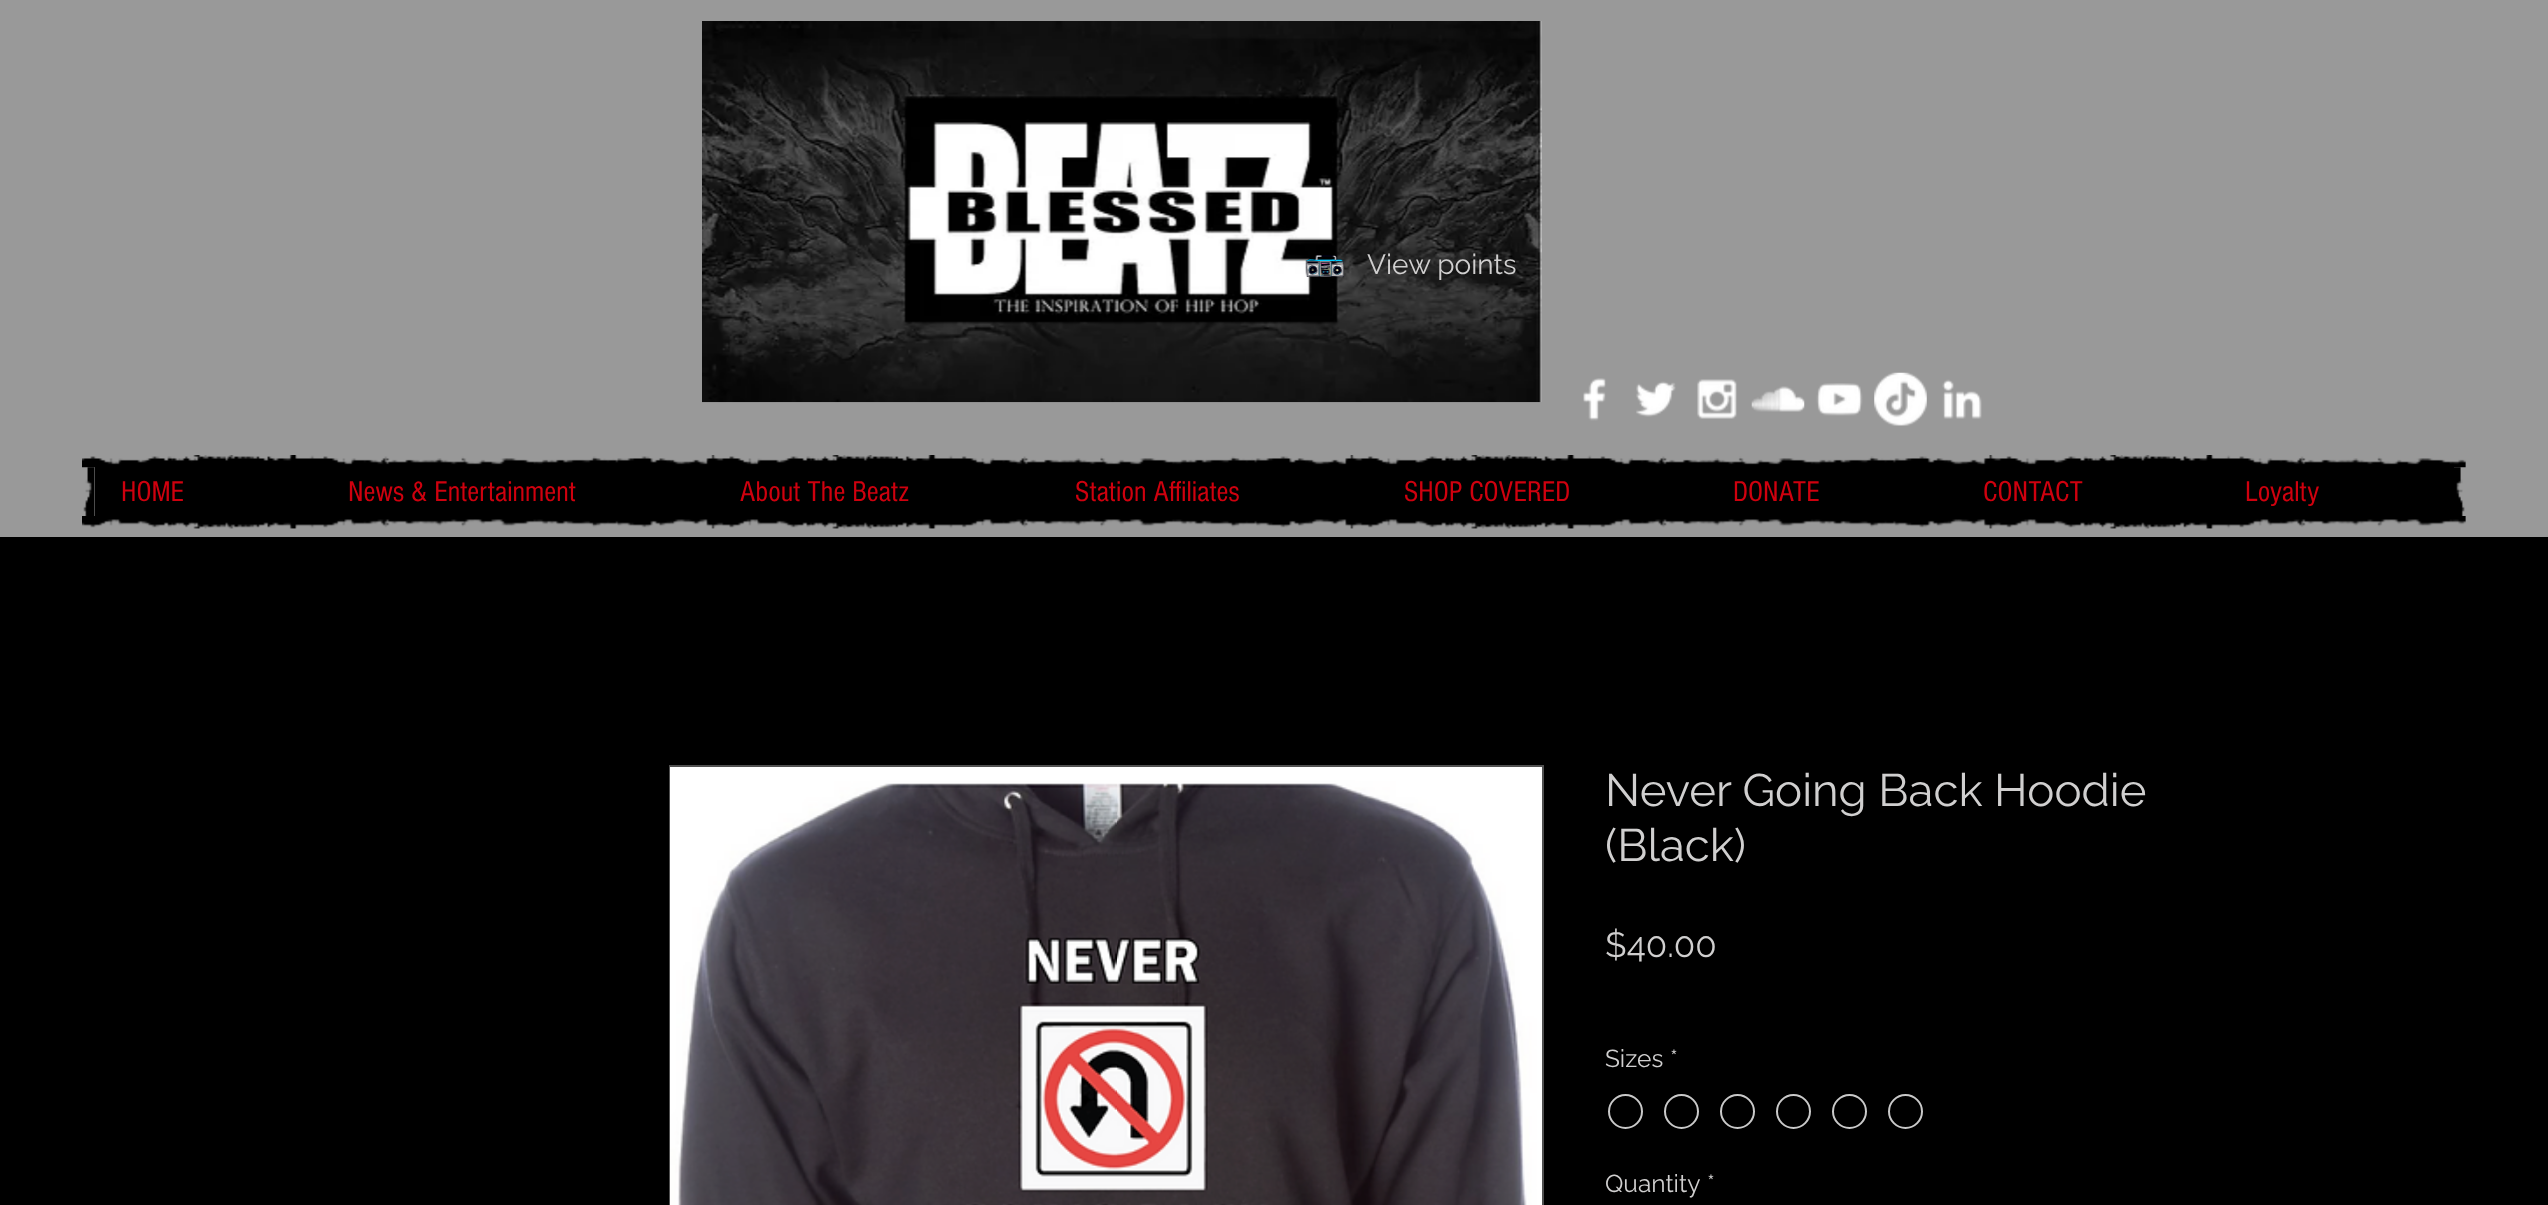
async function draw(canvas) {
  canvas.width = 2548
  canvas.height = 1205
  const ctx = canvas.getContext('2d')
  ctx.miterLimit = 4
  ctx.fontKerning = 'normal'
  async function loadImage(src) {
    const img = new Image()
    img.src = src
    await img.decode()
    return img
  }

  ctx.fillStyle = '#000'
  ctx.fillRect(0, 0, 2548, 1205)
  ctx.fillStyle = '#999'
  ctx.fillRect(0, 0, 2548, 537)
  ctx.drawImage(await loadImage('image0.png'), 702, 21, 840, 382)
  ctx.drawImage(await loadImage('image1.png'), 1305, 255, 39, 22)
  ctx.font = '28px Raleway'
  ctx.fillStyle = '#d0cfcf'
  ctx.fillText('View points', 1367, 274)
  ctx.drawImage(await loadImage('image2.png'), 1583, 378, 23, 43)
  ctx.drawImage(await loadImage('image3.png'), 1636, 381, 40, 36)
  ctx.drawImage(await loadImage('image4.png'), 1697, 379, 40, 40)
  ctx.drawImage(await loadImage('image5.png'), 1751, 386, 54, 26)
  ctx.drawImage(await loadImage('image6.png'), 1816, 383, 47, 33)
  ctx.drawImage(await loadImage('image7.png'), 1874, 372, 53, 54)
  ctx.drawImage(await loadImage('image8.png'), 1942, 379, 40, 40)
  ctx.drawImage(await loadImage('image9.png'), 82, 455, 2384, 13)
  ctx.drawImage(await loadImage('image10.png'), 83, 467, 12, 49)
  ctx.fillStyle = '#000'
  ctx.fillRect(95, 467, 2359, 49)
  ctx.font = '29.75px "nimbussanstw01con"'
  ctx.fillStyle = '#cf000e'
  ctx.fillText('HOME', 121, 501)
  ctx.fillText('News & Entertainment', 348, 501)
  ctx.fillText('About The Beatz', 740, 501)
  ctx.fillText('Station Affiliates', 1075, 501)
  ctx.fillText('SHOP COVERED', 1404, 501)
  ctx.fillText('DONATE', 1733, 501)
  ctx.fillText('CONTACT', 1983, 501)
  ctx.fillText('Loyalty', 2245, 501)
  ctx.drawImage(await loadImage('image11.png'), 2453, 467, 12, 49)
  ctx.drawImage(await loadImage('image12.png'), 82, 516, 2384, 13)
  ctx.strokeStyle = '#505050'
  ctx.lineWidth = 2
  ctx.strokeRect(670, 766, 873, 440)
  ctx.drawImage(await loadImage('image13.png'), 670, 767, 872, 438)
  ctx.font = '45.5px Raleway'
  ctx.fillStyle = '#d0cfcf'
  ctx.fillText('Never Going Back Hoodie', 1605, 806)
  ctx.fillText('(Black)', 1605, 861)
  ctx.font = '35px Raleway'
  ctx.fillText('$40.00', 1605, 957)
  ctx.font = '24.5px Raleway'
  ctx.fillText('Sizes', 1605, 1067)
  ctx.fillText('*', 1670, 1067)
  ctx.beginPath()
  ctx.arc(1625.5, 1111.5, 16.5, 0, 2 * Math.PI)
  ctx.strokeStyle = '#c9c9c9'
  ctx.stroke()
  ctx.beginPath()
  ctx.arc(1681.5, 1111.5, 16.5, 0, 2 * Math.PI)
  ctx.stroke()
  ctx.beginPath()
  ctx.arc(1737.5, 1111.5, 16.5, 0, 2 * Math.PI)
  ctx.stroke()
  ctx.beginPath()
  ctx.arc(1793.5, 1111.5, 16.5, 0, 2 * Math.PI)
  ctx.stroke()
  ctx.beginPath()
  ctx.arc(1849.5, 1111.5, 16.5, 0, 2 * Math.PI)
  ctx.stroke()
  ctx.beginPath()
  ctx.arc(1905.5, 1111.5, 16.5, 0, 2 * Math.PI)
  ctx.stroke()
  ctx.fillText('Quantity', 1605, 1192)
  ctx.fillText('*', 1707, 1192)
}

draw(document.querySelector('canvas'))
